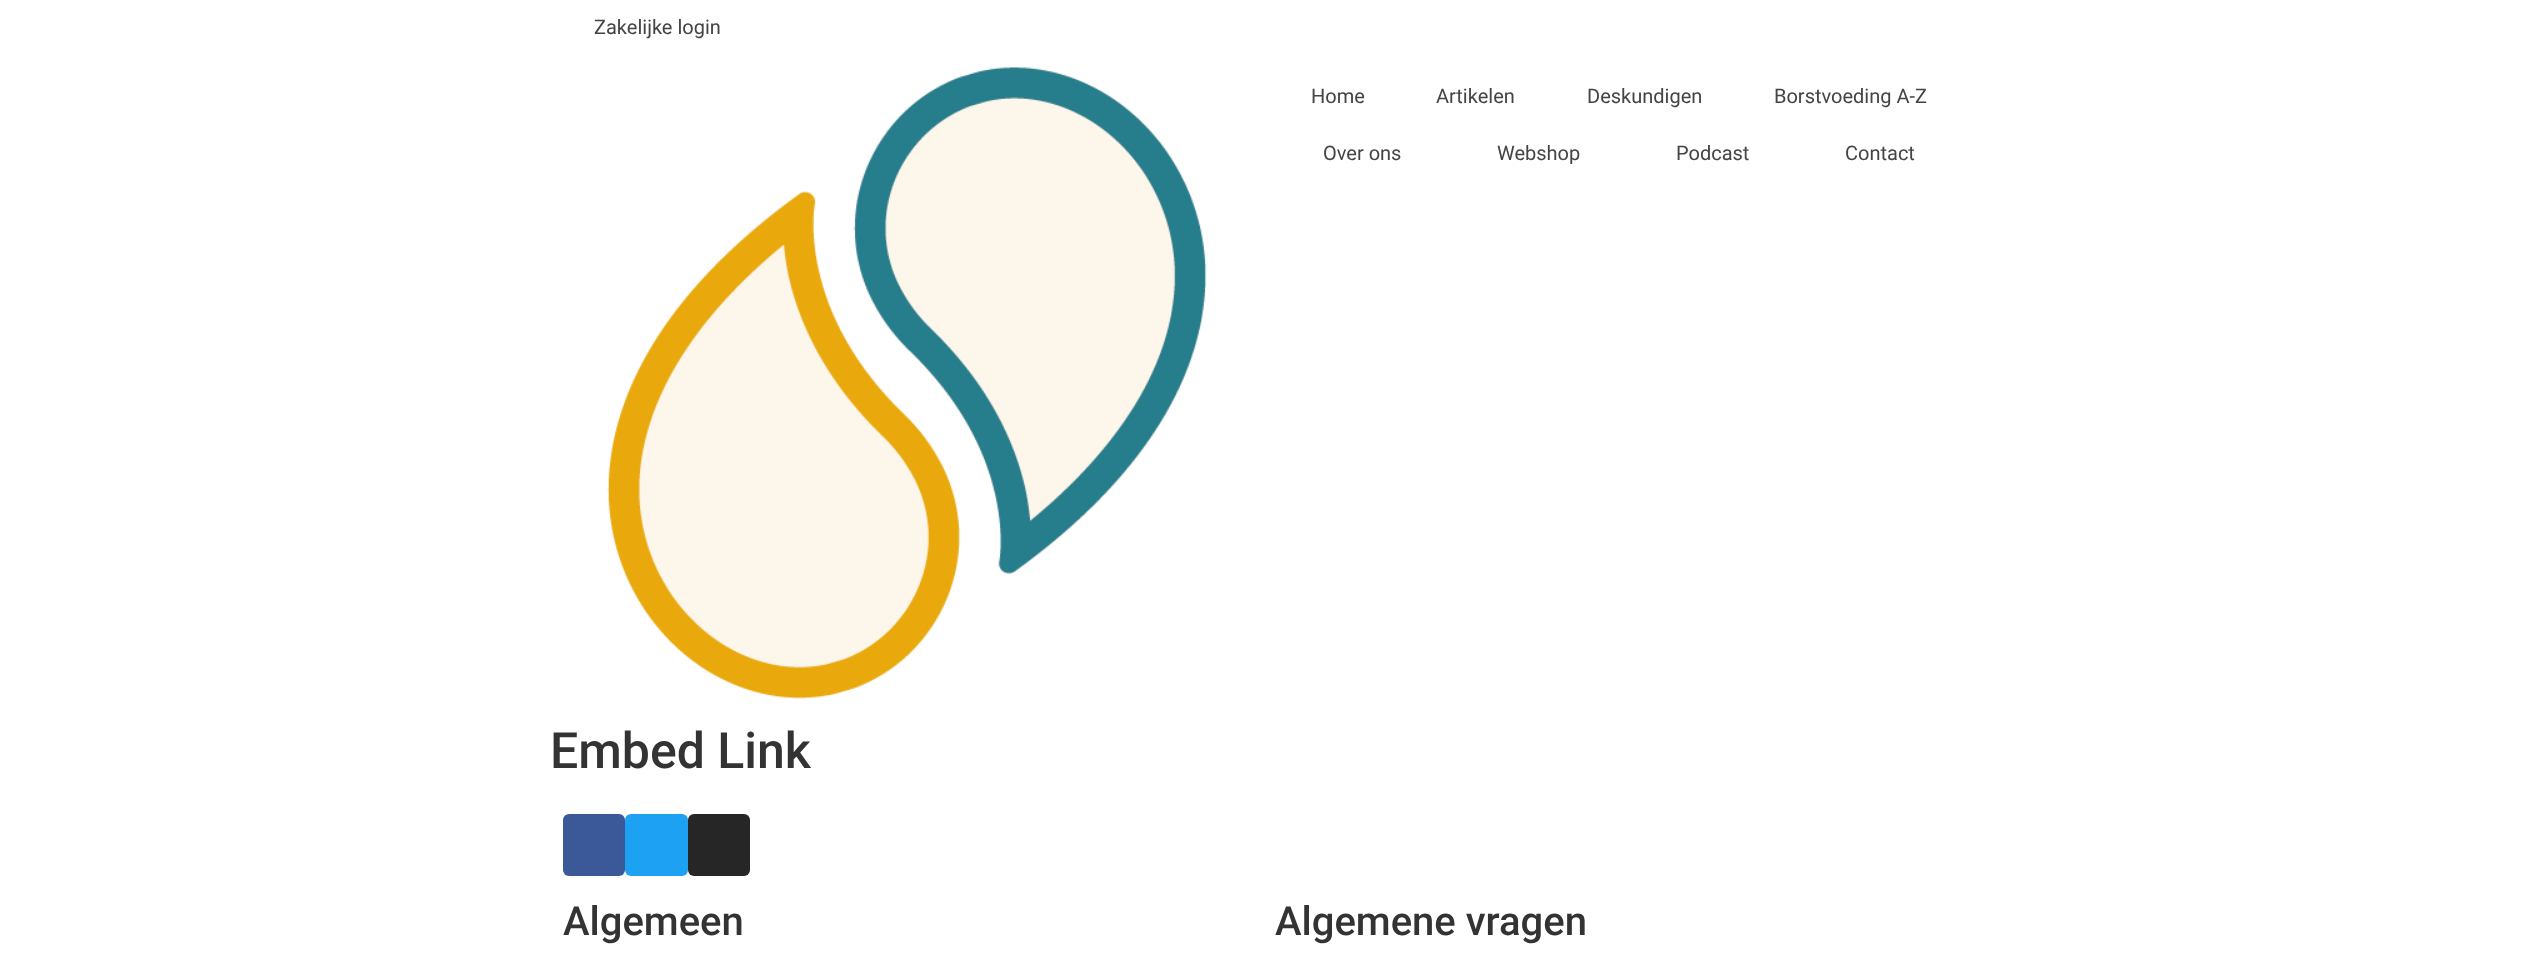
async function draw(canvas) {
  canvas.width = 2524
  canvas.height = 954
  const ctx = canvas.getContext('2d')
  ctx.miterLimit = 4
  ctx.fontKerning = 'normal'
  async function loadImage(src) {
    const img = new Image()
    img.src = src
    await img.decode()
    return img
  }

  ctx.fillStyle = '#fff'
  ctx.fillRect(0, 0, 2524, 954)
  ctx.font = '20px Roboto'
  ctx.fillStyle = '#444'
  ctx.fillText('Zakelijke login', 594, 34)
  ctx.drawImage(await loadImage('image0.png'), 607, 67, 600, 632)
  ctx.fillText('Home', 1311, 103)
  ctx.fillText('Artikelen', 1436, 103)
  ctx.fillText('Deskundigen', 1587, 103)
  ctx.fillText('Borstvoeding A-Z', 1774, 103)
  ctx.fillText('Over ons', 1323, 160)
  ctx.fillText('Webshop', 1497, 160)
  ctx.fillText('Podcast', 1676, 160)
  ctx.fillText('Contact', 1845, 160)
  ctx.font = '500 50px Roboto'
  ctx.fillStyle = '#333'
  ctx.fillText('Embed Link', 550, 768)
  ctx.fillStyle = '#3b5998'
  ctx.beginPath()
  ctx.roundRect(563, 814, 62, 62, 6)
  ctx.fill()
  ctx.fillStyle = '#1da1f2'
  ctx.beginPath()
  ctx.roundRect(625, 814, 63, 62, 6)
  ctx.fill()
  ctx.fillStyle = '#262626'
  ctx.beginPath()
  ctx.roundRect(688, 814, 62, 62, 6)
  ctx.fill()
  ctx.font = '500 40px Roboto'
  ctx.fillStyle = '#333'
  ctx.fillText('Algemeen', 563, 935)
  ctx.fillText('Algemene vragen', 1275, 935)
}

draw(document.querySelector('canvas'))
